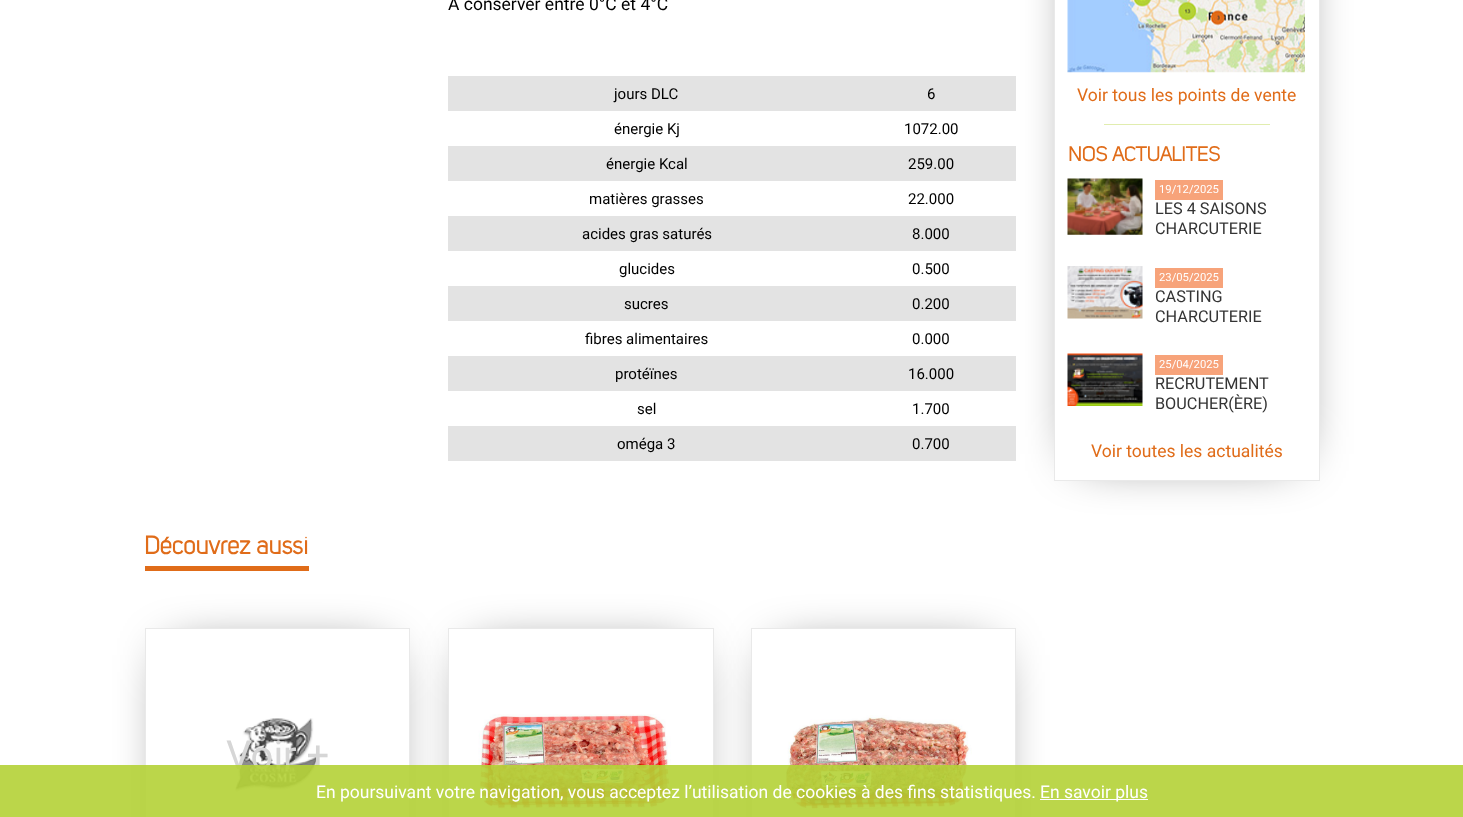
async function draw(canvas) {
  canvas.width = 1463
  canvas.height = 817
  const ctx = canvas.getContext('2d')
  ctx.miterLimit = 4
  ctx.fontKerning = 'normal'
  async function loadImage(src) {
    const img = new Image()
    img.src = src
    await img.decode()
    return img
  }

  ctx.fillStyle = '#fff'
  ctx.fillRect(0, 0, 1463, 817)
  ctx.font = '17.5px Roboto'
  ctx.fillStyle = '#000'
  ctx.fillText('A conserver entre 0°C et 4°C', 448, 10)
  ctx.fillStyle = '#e3e3e3'
  ctx.fillRect(448, 76, 568, 35)
  ctx.font = '15px Roboto'
  ctx.fillStyle = '#000'
  ctx.fillText('jours DLC', 614, 99)
  ctx.fillText('6', 927, 99)
  ctx.fillText('énergie Kj', 614, 134)
  ctx.fillText('1072.00', 904, 134)
  ctx.fillStyle = '#e3e3e3'
  ctx.fillRect(448, 146, 568, 35)
  ctx.fillStyle = '#000'
  ctx.fillText('énergie Kcal', 606, 169)
  ctx.fillText('259.00', 908, 169)
  ctx.fillText('matières grasses', 589, 204)
  ctx.fillText('22.000', 908, 204)
  ctx.fillStyle = '#e3e3e3'
  ctx.fillRect(448, 216, 568, 35)
  ctx.fillStyle = '#000'
  ctx.fillText('acides gras saturés', 582, 239)
  ctx.fillText('8.000', 912, 239)
  ctx.fillText('glucides', 619, 274)
  ctx.fillText('0.500', 912, 274)
  ctx.fillStyle = '#e3e3e3'
  ctx.fillRect(448, 286, 568, 35)
  ctx.fillStyle = '#000'
  ctx.fillText('sucres', 624, 309)
  ctx.fillText('0.200', 912, 309)
  ctx.fillText('fibres alimentaires', 585, 344)
  ctx.fillText('0.000', 912, 344)
  ctx.fillStyle = '#e3e3e3'
  ctx.fillRect(448, 356, 568, 35)
  ctx.fillStyle = '#000'
  ctx.fillText('protéïnes', 615, 379)
  ctx.fillText('16.000', 908, 379)
  ctx.fillText('sel', 637, 414)
  ctx.fillText('1.700', 912, 414)
  ctx.fillStyle = '#e3e3e3'
  ctx.fillRect(448, 426, 568, 35)
  ctx.fillStyle = '#000'
  ctx.fillText('oméga 3', 617, 449)
  ctx.fillText('0.700', 912, 449)
  ctx.fillStyle = '#e06c19'
  ctx.fillRect(145, 566, 164, 5)
  ctx.font = 'bold 25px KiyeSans'
  ctx.fillText('Découvrez aussi', 144, 554)
  ctx.save()
  ctx.beginPath()
  ctx.moveTo(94, 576)
  ctx.lineTo(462, 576)
  ctx.lineTo(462, 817)
  ctx.lineTo(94, 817)
  ctx.closePath()
  ctx.moveTo(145, 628)
  ctx.lineTo(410, 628)
  ctx.lineTo(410, 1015)
  ctx.lineTo(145, 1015)
  ctx.closePath()
  ctx.clip('evenodd')
  ctx.fillStyle = '#000000bf'
  ctx.filter = 'blur(26px)'
  ctx.beginPath()
  ctx.rect(173, 655, 210, 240)
  ctx.fill()
  ctx.filter = 'none'
  ctx.restore()
  ctx.strokeStyle = '#e9e9e9'
  ctx.strokeRect(145.5, 628.5, 264, 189)
  ctx.drawImage(await loadImage('image0.png'), 234, 718, 86, 74)
  ctx.font = '40px Roboto'
  ctx.fillStyle = '#d6d6d6'
  ctx.fillText('Voir +', 226, 769)
  ctx.save()
  ctx.beginPath()
  ctx.moveTo(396, 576)
  ctx.lineTo(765, 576)
  ctx.lineTo(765, 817)
  ctx.lineTo(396, 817)
  ctx.closePath()
  ctx.moveTo(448, 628)
  ctx.lineTo(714, 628)
  ctx.lineTo(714, 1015)
  ctx.lineTo(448, 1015)
  ctx.closePath()
  ctx.clip('evenodd')
  ctx.fillStyle = '#000000bf'
  ctx.filter = 'blur(26px)'
  ctx.beginPath()
  ctx.rect(475, 655, 211, 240)
  ctx.fill()
  ctx.filter = 'none'
  ctx.restore()
  ctx.strokeRect(448.5, 628.5, 265, 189)
  ctx.drawImage(await loadImage('image1.png'), 478, 714, 193, 96)
  ctx.save()
  ctx.beginPath()
  ctx.moveTo(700, 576)
  ctx.lineTo(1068, 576)
  ctx.lineTo(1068, 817)
  ctx.lineTo(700, 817)
  ctx.closePath()
  ctx.moveTo(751, 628)
  ctx.lineTo(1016, 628)
  ctx.lineTo(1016, 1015)
  ctx.lineTo(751, 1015)
  ctx.closePath()
  ctx.clip('evenodd')
  ctx.fillStyle = '#000000bf'
  ctx.filter = 'blur(26px)'
  ctx.beginPath()
  ctx.rect(779, 655, 210, 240)
  ctx.fill()
  ctx.filter = 'none'
  ctx.restore()
  ctx.strokeRect(751.5, 628.5, 264, 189)
  ctx.drawImage(await loadImage('image2.png'), 784, 715, 188, 95)
  ctx.save()
  ctx.beginPath()
  ctx.moveTo(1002, 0)
  ctx.lineTo(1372, 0)
  ctx.lineTo(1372, 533)
  ctx.lineTo(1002, 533)
  ctx.closePath()
  ctx.moveTo(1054, -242)
  ctx.lineTo(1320, -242)
  ctx.lineTo(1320, 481)
  ctx.lineTo(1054, 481)
  ctx.closePath()
  ctx.clip('evenodd')
  ctx.fillStyle = '#000000bf'
  ctx.filter = 'blur(26px)'
  ctx.beginPath()
  ctx.rect(1081, -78, 212, 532)
  ctx.fill()
  ctx.filter = 'none'
  ctx.restore()
  ctx.strokeRect(1054.5, -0.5, 265, 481)
  ctx.drawImage(await loadImage('image3.png'), 1067, 0, 238, 73)
  ctx.font = '17.5px Roboto'
  ctx.fillStyle = '#e06c19'
  ctx.fillText('Voir tous les points de vente', 1077, 101)
  ctx.fillStyle = '#e1edaf'
  ctx.fillRect(1104, 124, 166, 1)
  ctx.font = 'bold 20px KiyeSans'
  ctx.fillStyle = '#e06c19'
  ctx.fillText('NOS ACTUALITES', 1068, 161)
  ctx.drawImage(await loadImage('image4.png'), 1067, 178, 76, 57)
  ctx.fillStyle = '#f7a37a'
  ctx.fillRect(1155, 180, 68, 20)
  ctx.font = '11.25px Roboto'
  ctx.fillStyle = '#fff'
  ctx.fillText('19/12/2025', 1159, 193)
  ctx.font = '16.25px Roboto'
  ctx.fillStyle = '#343434'
  ctx.fillText('LES 4 SAISONS', 1155, 214)
  ctx.fillText('CHARCUTERIE', 1155, 234)
  ctx.drawImage(await loadImage('image5.png'), 1067, 266, 76, 53)
  ctx.fillStyle = '#f7a37a'
  ctx.fillRect(1155, 268, 68, 20)
  ctx.font = '11.25px Roboto'
  ctx.fillStyle = '#fff'
  ctx.fillText('23/05/2025', 1159, 281)
  ctx.font = '16.25px Roboto'
  ctx.fillStyle = '#343434'
  ctx.fillText('CASTING', 1155, 302)
  ctx.fillText('CHARCUTERIE', 1155, 322)
  ctx.drawImage(await loadImage('image6.png'), 1067, 353, 76, 53)
  ctx.fillStyle = '#f7a37a'
  ctx.fillRect(1155, 355, 68, 20)
  ctx.font = '11.25px Roboto'
  ctx.fillStyle = '#fff'
  ctx.fillText('25/04/2025', 1159, 368)
  ctx.font = '16.25px Roboto'
  ctx.fillStyle = '#343434'
  ctx.fillText('RECRUTEMENT', 1155, 389)
  ctx.fillText('BOUCHER(ÈRE)', 1155, 409)
  ctx.font = '17.5px Roboto'
  ctx.fillStyle = '#e06c19'
  ctx.fillText('Voir toutes les actualités', 1091, 457)
  ctx.fillStyle = '#b4d236e6'
  ctx.fillRect(0, 765, 1463, 52)
  ctx.fillStyle = '#fff'
  ctx.fillText('En poursuivant votre navigation, vous acceptez l’utilisation de cookies à des fins statistiques.', 316, 798)
  ctx.fillRect(1040, 799, 108, 1)
  ctx.fillText('En savoir plus', 1040, 798)
}

draw(document.querySelector('canvas'))
